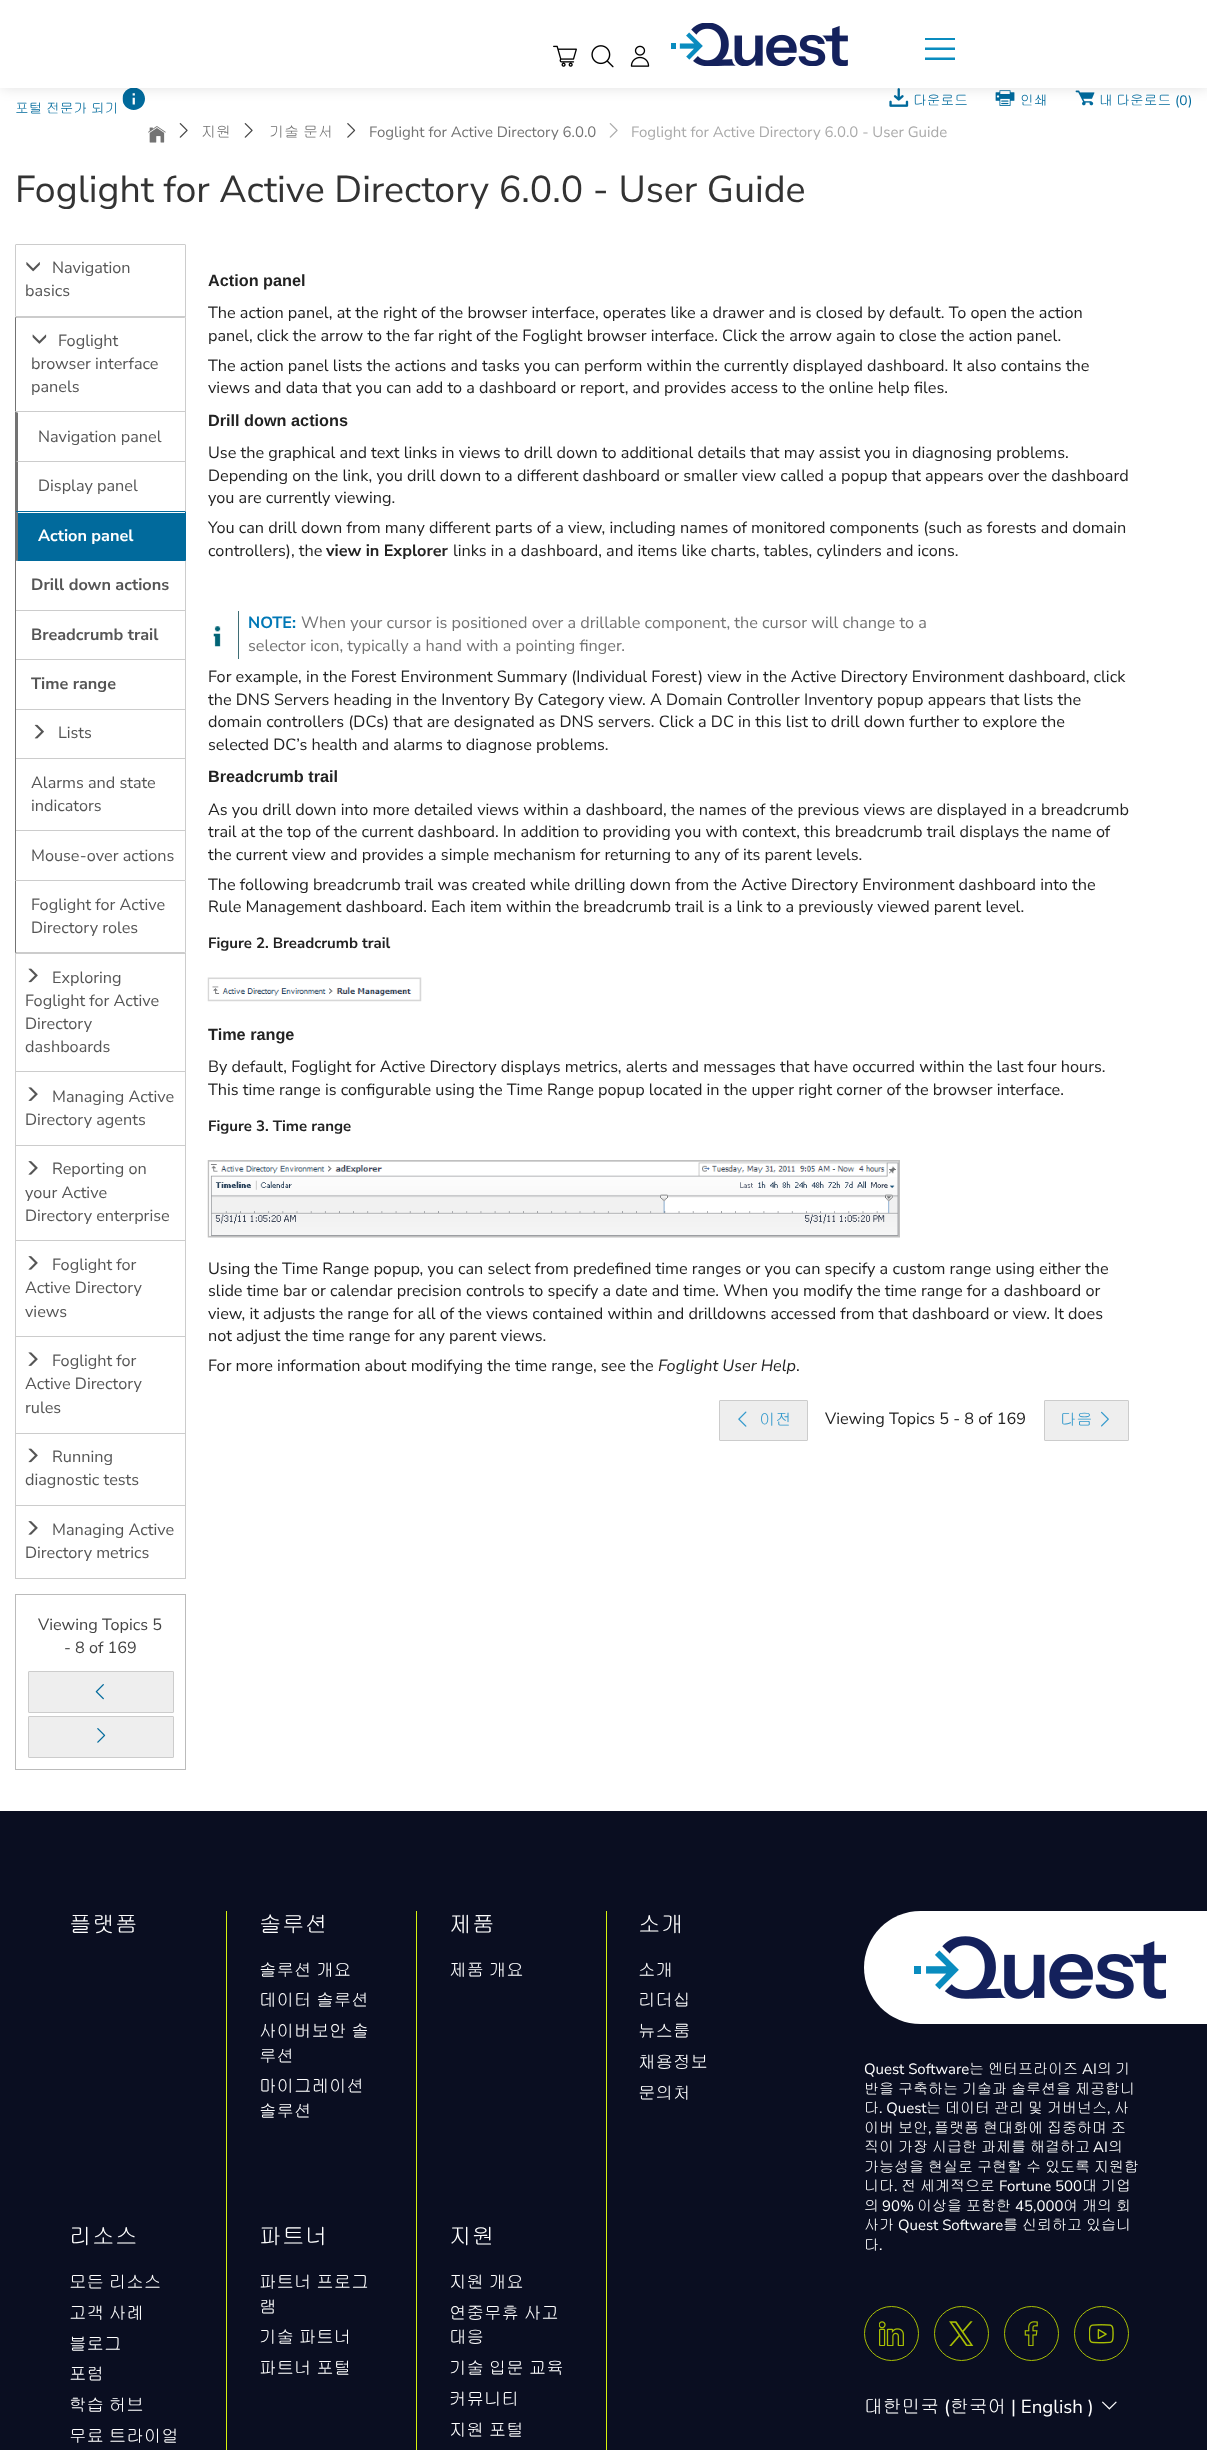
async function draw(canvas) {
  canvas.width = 1207
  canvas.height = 2450
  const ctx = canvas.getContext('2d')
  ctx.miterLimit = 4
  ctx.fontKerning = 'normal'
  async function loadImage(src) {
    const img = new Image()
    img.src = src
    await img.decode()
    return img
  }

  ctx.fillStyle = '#fff'
  ctx.fillRect(0, 0, 1207, 2450)
  ctx.drawImage(await loadImage('image5.png'), 122, 88, 23, 22)
  ctx.drawImage(await loadImage('image6.png'), 889, 88, 20, 19)
  ctx.drawImage(await loadImage('image7.png'), 995, 90, 20, 16)
  ctx.drawImage(await loadImage('image8.png'), 1075, 90, 20, 16)
  ctx.fillStyle = '#00000029'
  ctx.filter = 'blur(7.5px)'
  ctx.beginPath()
  ctx.rect(1, -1, 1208, 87)
  ctx.fill()
  ctx.filter = 'none'
  ctx.fillStyle = '#fff'
  ctx.fillRect(0, 0, 1207, 88)
  ctx.drawImage(await loadImage('image0.png'), 553, 45, 24, 22)
  ctx.drawImage(await loadImage('image1.png'), 591, 45, 23, 23)
  ctx.drawImage(await loadImage('image2.png'), 630, 45, 20, 22)
  ctx.drawImage(await loadImage('image3.png'), 671, 23, 177, 43)
  ctx.drawImage(await loadImage('image4.png'), 925, 38, 30, 22)
  ctx.wordSpacing = '-1px'
  ctx.font = '13.75px Gulim'
  ctx.fillStyle = '#016a9c'
  ctx.fillText('포털 전문가 되기', 15, 113)
  ctx.wordSpacing = '0px'
  ctx.fillText('다운로드', 913, 105)
  ctx.fillText('인쇄', 1020, 105)
  ctx.wordSpacing = '-1px'
  ctx.fillText('내 다운로드', 1099, 105)
  ctx.wordSpacing = '0px'
  ctx.font = '13.75px Nunito Sans'
  ctx.fillText('(0', 1175, 105)
  ctx.font = '13.75px "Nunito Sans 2"'
  ctx.fillText(')', 1188, 105)
  ctx.drawImage(await loadImage('image9.png'), 148, 126, 18, 17)
  ctx.drawImage(await loadImage('image10.png'), 179, 123, 9, 15)
  ctx.font = '15px Gulim'
  ctx.fillStyle = '#737373'
  ctx.fillText('지원', 201, 137)
  ctx.drawImage(await loadImage('image10.png'), 244, 123, 9, 15)
  ctx.wordSpacing = '-1px'
  ctx.fillText('기술 문서', 269, 137)
  ctx.drawImage(await loadImage('image11.png'), 347, 123, 9, 15)
  ctx.wordSpacing = '0px'
  ctx.font = '15px Nunito Sans'
  ctx.fillText('Foglight for Active Directory 6.0.0', 369, 137)
  ctx.drawImage(await loadImage('image12.png'), 609, 123, 9, 15)
  ctx.fillStyle = '#aaa'
  ctx.fillText('Foglight for Active Directory 6.0.0 - User Guide', 631, 137)
  ctx.font = '37.5px Nunito Sans'
  ctx.fillStyle = '#333'
  ctx.fillText('Foglight for Active Directory 6.0.0 - User Guide', 15, 202)
  ctx.beginPath()
  ctx.roundRect(15.5, 244.5, 170, 73, [0.5, 0.5, 0, 0])
  ctx.strokeStyle = '#ccc'
  ctx.stroke()
  ctx.drawImage(await loadImage('image13.png'), 26, 262, 14, 10)
  ctx.font = '16.25px Nunito Sans'
  ctx.fillStyle = '#555'
  ctx.fillText('Navigation', 52, 273)
  ctx.fillText('basics', 25, 296)
  ctx.fillStyle = '#fff'
  ctx.beginPath()
  ctx.roundRect(15, 316, 171, 97, [1, 1, 0, 0])
  ctx.fill()
  ctx.fillStyle = '#ccc'
  ctx.beginPath()
  ctx.moveTo(15, 317)
  ctx.lineTo(16, 316)
  ctx.lineTo(186, 316)
  ctx.lineTo(186, 317)
  ctx.lineTo(184, 318)
  ctx.lineTo(17, 318)
  ctx.closePath()
  ctx.fill()
  ctx.beginPath()
  ctx.moveTo(186, 317)
  ctx.lineTo(186, 412)
  ctx.lineTo(185, 411)
  ctx.lineTo(185, 318)
  ctx.lineTo(184, 318)
  ctx.closePath()
  ctx.fill()
  ctx.beginPath()
  ctx.moveTo(186, 412)
  ctx.lineTo(16, 412)
  ctx.lineTo(16, 411)
  ctx.lineTo(185, 411)
  ctx.closePath()
  ctx.fill()
  ctx.fillStyle = '#737373'
  ctx.beginPath()
  ctx.moveTo(16, 318)
  ctx.lineTo(17, 318)
  ctx.lineTo(15, 317)
  ctx.lineTo(15, 318)
  ctx.lineTo(15, 412)
  ctx.lineTo(16, 411)
  ctx.closePath()
  ctx.fill()
  ctx.drawImage(await loadImage('image14.png'), 32, 334, 15, 10)
  ctx.fillStyle = '#555'
  ctx.fillText('Foglight', 58, 346)
  ctx.fillText('browser interface', 31, 369)
  ctx.fillText('panels', 31, 392)
  ctx.fillStyle = '#ccc'
  ctx.beginPath()
  ctx.moveTo(18, 412)
  ctx.lineTo(18, 413)
  ctx.lineTo(16, 412)
  ctx.lineTo(186, 411)
  ctx.lineTo(186, 412)
  ctx.lineTo(185, 412)
  ctx.closePath()
  ctx.fill()
  ctx.beginPath()
  ctx.moveTo(186, 412)
  ctx.lineTo(186, 462)
  ctx.lineTo(185, 461)
  ctx.lineTo(185, 412)
  ctx.closePath()
  ctx.fill()
  ctx.fillStyle = '#737373'
  ctx.beginPath()
  ctx.moveTo(15, 412)
  ctx.lineTo(15, 462)
  ctx.lineTo(16, 462)
  ctx.lineTo(18, 461)
  ctx.lineTo(18, 413)
  ctx.lineTo(16, 412)
  ctx.closePath()
  ctx.fill()
  ctx.fillStyle = '#555'
  ctx.fillText('Navigation panel', 38, 442)
  ctx.fillStyle = '#ccc'
  ctx.beginPath()
  ctx.moveTo(15, 461)
  ctx.lineTo(186, 461)
  ctx.lineTo(185, 462)
  ctx.lineTo(18, 462)
  ctx.closePath()
  ctx.fill()
  ctx.fillRect(185, 461, 1, 52)
  ctx.fillStyle = '#737373'
  ctx.beginPath()
  ctx.moveTo(15, 512)
  ctx.lineTo(15, 461)
  ctx.lineTo(18, 462)
  ctx.lineTo(18, 511)
  ctx.closePath()
  ctx.fill()
  ctx.fillStyle = '#555'
  ctx.fillText('Display panel', 38, 491)
  ctx.fillStyle = '#016a9c'
  ctx.fillRect(18, 513, 167, 47)
  ctx.beginPath()
  ctx.moveTo(18, 512)
  ctx.lineTo(18, 513)
  ctx.lineTo(15, 511)
  ctx.lineTo(186, 511)
  ctx.lineTo(185, 512)
  ctx.closePath()
  ctx.fill()
  ctx.fillStyle = '#ccc'
  ctx.fillRect(185, 560, 1, 51)
  ctx.fillStyle = '#016a9c'
  ctx.beginPath()
  ctx.moveTo(186, 512)
  ctx.lineTo(186, 561)
  ctx.lineTo(185, 560)
  ctx.lineTo(185, 512)
  ctx.closePath()
  ctx.fill()
  ctx.beginPath()
  ctx.moveTo(186, 561)
  ctx.lineTo(16, 561)
  ctx.lineTo(18, 560)
  ctx.lineTo(185, 560)
  ctx.closePath()
  ctx.fill()
  ctx.fillStyle = '#737373'
  ctx.fillRect(15, 560, 1, 51)
  ctx.beginPath()
  ctx.moveTo(15, 511)
  ctx.lineTo(15, 560)
  ctx.lineTo(16, 561)
  ctx.lineTo(18, 560)
  ctx.lineTo(18, 513)
  ctx.closePath()
  ctx.fill()
  ctx.font = 'bold 16.25px Nunito Sans'
  ctx.fillStyle = '#fff'
  ctx.fillText('Action panel', 38, 541)
  ctx.fillStyle = '#555'
  ctx.fillText('Drill down actions', 31, 590)
  ctx.fillStyle = '#ccc'
  ctx.fillRect(15, 610, 171, 1)
  ctx.fillRect(185, 610, 1, 50)
  ctx.fillStyle = '#737373'
  ctx.fillRect(15, 610, 1, 50)
  ctx.fillStyle = '#555'
  ctx.fillText('Breadcrumb trail', 31, 640)
  ctx.fillStyle = '#ccc'
  ctx.fillRect(15, 659, 171, 1)
  ctx.fillRect(185, 659, 1, 51)
  ctx.fillStyle = '#737373'
  ctx.fillRect(15, 659, 1, 51)
  ctx.fillStyle = '#555'
  ctx.fillText('Time range', 31, 689)
  ctx.fillStyle = '#ccc'
  ctx.fillRect(15, 709, 171, 1)
  ctx.fillRect(185, 709, 1, 50)
  ctx.fillStyle = '#737373'
  ctx.fillRect(15, 709, 1, 50)
  ctx.drawImage(await loadImage('image15.png'), 34, 724, 10, 15)
  ctx.font = '16.25px Nunito Sans'
  ctx.fillStyle = '#555'
  ctx.fillText('Lists', 58, 738)
  ctx.fillStyle = '#ccc'
  ctx.fillRect(15, 758, 171, 1)
  ctx.fillRect(185, 758, 1, 73)
  ctx.fillStyle = '#737373'
  ctx.fillRect(15, 758, 1, 73)
  ctx.fillStyle = '#555'
  ctx.fillText('Alarms and state', 31, 788)
  ctx.fillText('indicators', 31, 811)
  ctx.fillStyle = '#ccc'
  ctx.fillRect(15, 830, 171, 1)
  ctx.fillRect(185, 830, 1, 51)
  ctx.fillStyle = '#737373'
  ctx.fillRect(15, 830, 1, 51)
  ctx.fillStyle = '#555'
  ctx.fillText('Mouse-over actions', 31, 861)
  ctx.fillStyle = '#fff'
  ctx.fillRect(15, 880, 171, 1)
  ctx.fillStyle = '#ccc'
  ctx.beginPath()
  ctx.moveTo(15, 880)
  ctx.lineTo(16, 881)
  ctx.lineTo(185, 881)
  ctx.lineTo(186, 880)
  ctx.closePath()
  ctx.fill()
  ctx.beginPath()
  ctx.moveTo(186, 880)
  ctx.lineTo(186, 953)
  ctx.lineTo(184, 952)
  ctx.lineTo(185, 952)
  ctx.lineTo(185, 881)
  ctx.closePath()
  ctx.fill()
  ctx.beginPath()
  ctx.moveTo(16, 954)
  ctx.lineTo(15, 953)
  ctx.lineTo(17, 952)
  ctx.lineTo(184, 952)
  ctx.lineTo(186, 953)
  ctx.lineTo(186, 954)
  ctx.closePath()
  ctx.fill()
  ctx.save()
  ctx.beginPath()
  ctx.rect(15, 316, 171, 638)
  ctx.clip()
  ctx.fillStyle = '#737373'
  ctx.beginPath()
  ctx.moveTo(16, 881)
  ctx.lineTo(15, 880)
  ctx.bezierCurveTo(15, 888, 14, 951, 15, 953)
  ctx.lineTo(17, 952)
  ctx.lineTo(16, 952)
  ctx.closePath()
  ctx.fill()
  ctx.restore()
  ctx.fillStyle = '#555'
  ctx.fillText('Foglight for Active', 31, 910)
  ctx.fillText('Directory roles', 31, 933)
  ctx.strokeRect(15.5, 953.5, 170, 119)
  ctx.drawImage(await loadImage('image16.png'), 28, 968, 10, 15)
  ctx.fillText('Exploring', 52, 983)
  ctx.fillText('Foglight for Active', 25, 1006)
  ctx.fillText('Directory', 25, 1029)
  ctx.fillText('dashboards', 25, 1052)
  ctx.fillStyle = '#fff'
  ctx.fillRect(16, 1072, 169, 1)
  ctx.strokeRect(15.5, 1071.5, 170, 74)
  ctx.drawImage(await loadImage('image17.png'), 28, 1087, 10, 14)
  ctx.fillStyle = '#555'
  ctx.fillText('Managing Active', 52, 1102)
  ctx.fillText('Directory agents', 25, 1125)
  ctx.strokeRect(15.5, 1145.5, 170, 95)
  ctx.drawImage(await loadImage('image18.png'), 28, 1161, 10, 14)
  ctx.fillText('Reporting on', 52, 1174)
  ctx.fillText('your Active', 25, 1198)
  ctx.fillText('Directory enterprise', 25, 1221)
  ctx.strokeRect(15.5, 1240.5, 170, 97)
  ctx.drawImage(await loadImage('image18.png'), 28, 1256, 10, 14)
  ctx.fillText('Foglight for', 52, 1270)
  ctx.fillText('Active Directory', 25, 1293)
  ctx.fillText('views', 25, 1317)
  ctx.fillStyle = '#fff'
  ctx.fillRect(16, 1337, 169, 1)
  ctx.strokeRect(15.5, 1336.5, 170, 97)
  ctx.drawImage(await loadImage('image17.png'), 28, 1352, 10, 14)
  ctx.fillStyle = '#555'
  ctx.fillText('Foglight for', 52, 1366)
  ctx.fillText('Active Directory', 25, 1389)
  ctx.fillText('rules', 25, 1413)
  ctx.strokeRect(15.5, 1433.5, 170, 72)
  ctx.drawImage(await loadImage('image16.png'), 28, 1448, 10, 15)
  ctx.fillText('Running', 52, 1462)
  ctx.fillText('diagnostic tests', 25, 1485)
  ctx.strokeRect(15.5, 1505.5, 170, 73)
  ctx.drawImage(await loadImage('image18.png'), 28, 1521, 10, 14)
  ctx.fillText('Managing Active', 52, 1535)
  ctx.fillText('Directory metrics', 25, 1558)
  ctx.strokeStyle = '#bbb'
  ctx.strokeRect(15.5, 1594.5, 170, 175)
  ctx.fillStyle = '#444'
  ctx.fillText('Viewing Topics 5', 38, 1630)
  ctx.fillText('- 8 of 169', 64, 1653)
  ctx.fillStyle = '#eee'
  ctx.beginPath()
  ctx.roundRect(28.5, 1671.5, 145, 41, 0.5)
  ctx.fill()
  ctx.strokeStyle = '#ccc'
  ctx.stroke()
  ctx.drawImage(await loadImage('image19.png'), 95, 1684, 9, 16)
  ctx.beginPath()
  ctx.roundRect(28.5, 1716.5, 145, 41, 0.5)
  ctx.fill()
  ctx.stroke()
  ctx.drawImage(await loadImage('image20.png'), 97, 1728, 9, 15)
  ctx.font = 'bold 16.25px Liberation Sans'
  ctx.fillStyle = '#222'
  ctx.fillText('Action panel', 208, 286)
  ctx.font = '16.25px Nunito Sans'
  ctx.fillText('The action panel, at the right of the browser interface, operates like a drawer and is closed by default. To open the action', 208, 318)
  ctx.fillText('panel, click the arrow to the far right of the Foglight browser interface. Click the arrow again to close the action panel.', 208, 341)
  ctx.fillText('The action panel lists the actions and tasks you can perform within the currently displayed dashboard. It also contains the', 208, 371)
  ctx.fillText('views and data that you can add to a dashboard or report, and provides access to the online help files.', 208, 393)
  ctx.font = 'bold 16.25px Liberation Sans'
  ctx.fillText('Drill down actions', 208, 426)
  ctx.font = '16.25px Nunito Sans'
  ctx.fillText('Use the graphical and text links in views to drill down to additional details that may assist you in diagnosing problems.', 208, 458)
  ctx.fillText('Depending on the link, you drill down to a different dashboard or smaller view called a popup that appears over the dashboard', 208, 481)
  ctx.fillText('you are currently viewing.', 208, 503)
  ctx.fillText('You can drill down from many different parts of a view, including names of monitored components (such as forests and domain', 208, 533)
  ctx.fillText('controllers), the', 208, 556)
  ctx.font = 'bold 16.25px Nunito Sans'
  ctx.fillText('view in Explorer', 326, 556)
  ctx.font = '16.25px Nunito Sans'
  ctx.fillText('links in a dashboard, and items like charts, tables, cylinders and icons.', 453, 556)
  ctx.drawImage(await loadImage('image21.png'), 213, 626, 8, 21)
  ctx.fillStyle = '#3f6d75'
  ctx.fillRect(238, 611, 1, 48)
  ctx.font = 'bold 16.25px Nunito Sans'
  ctx.fillStyle = '#0078b6'
  ctx.fillText('NOTE:', 248, 628)
  ctx.font = '16.25px Nunito Sans'
  ctx.fillStyle = '#737373'
  ctx.fillText('When your cursor is positioned over a drillable component, the cursor will change to a', 301, 628)
  ctx.fillText('selector icon, typically a hand with a pointing finger.', 248, 651)
  ctx.fillStyle = '#222'
  ctx.fillText('For example, in the Forest Environment Summary (Individual Forest) view in the Active Directory Environment dashboard, click', 208, 682)
  ctx.fillText('the DNS Servers heading in the Inventory By Category view. A Domain Controller Inventory popup appears that lists the', 208, 705)
  ctx.fillText('domain controllers (DCs) that are designated as DNS servers. Click a DC in this list to drill down further to explore the', 208, 727)
  ctx.fillText('selected DC’s health and alarms to diagnose problems.', 208, 750)
  ctx.font = 'bold 16.25px Liberation Sans'
  ctx.fillText('Breadcrumb trail', 208, 782)
  ctx.font = '16.25px Nunito Sans'
  ctx.fillText('As you drill down into more detailed views within a dashboard, the names of the previous views are displayed in a breadcrumb', 208, 815)
  ctx.fillText('trail at the top of the current dashboard. In addition to providing you with context, this breadcrumb trail displays the name of', 208, 837)
  ctx.fillText('the current view and provides a simple mechanism for returning to any of its parent levels.', 208, 860)
  ctx.fillText('The following breadcrumb trail was created while drilling down from the Active Directory Environment dashboard into the', 208, 890)
  ctx.fillText('Rule Management dashboard. Each item within the breadcrumb trail is a link to a previously viewed parent level.', 208, 912)
  ctx.font = 'bold 15px Nunito Sans'
  ctx.fillText('Figure 2. Breadcrumb trail', 208, 948)
  ctx.drawImage(await loadImage('image22.png'), 207, 977, 215, 25)
  ctx.font = 'bold 16.25px Liberation Sans'
  ctx.fillText('Time range', 208, 1040)
  ctx.font = '16.25px Nunito Sans'
  ctx.fillText('By default, Foglight for Active Directory displays metrics, alerts and messages that have occurred within the last four hours.', 208, 1072)
  ctx.fillText('This time range is configurable using the Time Range popup located in the upper right corner of the browser interface.', 208, 1095)
  ctx.font = 'bold 15px Nunito Sans'
  ctx.fillText('Figure 3. Time range', 208, 1131)
  ctx.drawImage(await loadImage('image23.png'), 207, 1160, 693, 78)
  ctx.font = '16.25px Nunito Sans'
  ctx.fillText('Using the Time Range popup, you can select from predefined time ranges or you can specify a custom range using either the', 208, 1274)
  ctx.fillText('slide time bar or calendar precision controls to specify a date and time. When you modify the time range for a dashboard or', 208, 1296)
  ctx.fillText('view, it adjusts the range for all of the views contained within and drilldowns accessed from that dashboard or view. It does', 208, 1319)
  ctx.fillText('not adjust the time range for any parent views.', 208, 1341)
  ctx.fillText('For more information about modifying the time range, see the', 208, 1371)
  ctx.font = 'italic 16.25px Nunito Sans'
  ctx.fillText('Foglight User Help', 658, 1371)
  ctx.font = '16.25px Nunito Sans'
  ctx.fillText('.', 796, 1371)
  ctx.fillStyle = '#eee'
  ctx.beginPath()
  ctx.roundRect(719.5, 1400.5, 88, 40, 0.5)
  ctx.fill()
  ctx.stroke()
  ctx.drawImage(await loadImage('image24.png'), 738, 1411, 9, 16)
  ctx.font = '16.25px Gulim'
  ctx.fillStyle = '#39c'
  ctx.fillText('이전', 759, 1425)
  ctx.font = '16.25px Nunito Sans'
  ctx.fillStyle = '#222'
  ctx.fillText('Viewing Topics 5 - 8 of 169', 825, 1424)
  ctx.fillStyle = '#eee'
  ctx.beginPath()
  ctx.roundRect(1044.5, 1400.5, 84, 40, 0.5)
  ctx.fill()
  ctx.stroke()
  ctx.font = '16.25px Gulim'
  ctx.fillStyle = '#39c'
  ctx.fillText('다음', 1060, 1425)
  ctx.drawImage(await loadImage('image25.png'), 1101, 1411, 8, 16)
  ctx.fillStyle = '#0a0e21'
  ctx.fillRect(0, 1811, 1207, 639)
  ctx.letterSpacing = '0.5px'
  ctx.font = '22.5px Gulim'
  ctx.fillStyle = '#fff'
  ctx.fillText('플랫폼', 69, 1932)
  ctx.fillText('리소스', 69, 2244)
  ctx.letterSpacing = '0px'
  ctx.wordSpacing = '-1px'
  ctx.font = '17.5px Gulim'
  ctx.fillText('모든 리소스', 69, 2288)
  ctx.fillText('고객 사례', 69, 2319)
  ctx.wordSpacing = '0px'
  ctx.fillText('블로그', 69, 2350)
  ctx.fillText('포럼', 69, 2380)
  ctx.wordSpacing = '-1px'
  ctx.fillText('학습 허브', 69, 2411)
  ctx.fillText('무료 트라이얼', 69, 2442)
  ctx.fillStyle = '#d7f20c'
  ctx.fillRect(226, 1911, 1, 539)
  ctx.letterSpacing = '0.5px'
  ctx.wordSpacing = '0px'
  ctx.font = '22.5px Gulim'
  ctx.fillStyle = '#fff'
  ctx.fillText('솔루션', 259, 1932)
  ctx.letterSpacing = '0px'
  ctx.wordSpacing = '-1px'
  ctx.font = '17.5px Gulim'
  ctx.fillText('솔루션 개요', 259, 1976)
  ctx.fillText('데이터 솔루션', 259, 2006)
  ctx.fillText('사이버보안 솔', 259, 2037)
  ctx.wordSpacing = '0px'
  ctx.fillText('루션', 259, 2062)
  ctx.fillText('마이그레이션', 259, 2092)
  ctx.fillText('솔루션', 259, 2117)
  ctx.letterSpacing = '0.5px'
  ctx.font = '22.5px Gulim'
  ctx.fillText('파트너', 259, 2244)
  ctx.letterSpacing = '0px'
  ctx.wordSpacing = '-1px'
  ctx.font = '17.5px Gulim'
  ctx.fillText('파트너 프로그', 259, 2288)
  ctx.wordSpacing = '0px'
  ctx.fillText('램', 259, 2313)
  ctx.wordSpacing = '-1px'
  ctx.fillText('기술 파트너', 259, 2343)
  ctx.fillText('파트너 포털', 259, 2374)
  ctx.fillStyle = '#d7f20c'
  ctx.fillRect(416, 1911, 1, 539)
  ctx.letterSpacing = '0.5px'
  ctx.wordSpacing = '0px'
  ctx.font = '22.5px Gulim'
  ctx.fillStyle = '#fff'
  ctx.fillText('제품', 449, 1932)
  ctx.letterSpacing = '0px'
  ctx.wordSpacing = '-1px'
  ctx.font = '17.5px Gulim'
  ctx.fillText('제품 개요', 449, 1976)
  ctx.letterSpacing = '0.5px'
  ctx.wordSpacing = '0px'
  ctx.font = '22.5px Gulim'
  ctx.fillText('지원', 449, 2244)
  ctx.letterSpacing = '0px'
  ctx.wordSpacing = '-1px'
  ctx.font = '17.5px Gulim'
  ctx.fillText('지원 개요', 449, 2288)
  ctx.fillText('연중무휴 사고', 449, 2319)
  ctx.wordSpacing = '0px'
  ctx.fillText('대응', 449, 2343)
  ctx.wordSpacing = '-1px'
  ctx.fillText('기술 입문 교육', 449, 2374)
  ctx.wordSpacing = '0px'
  ctx.fillText('커뮤니티', 449, 2405)
  ctx.wordSpacing = '-1px'
  ctx.fillText('지원 포털', 449, 2436)
  ctx.fillStyle = '#d7f20c'
  ctx.fillRect(606, 1911, 1, 539)
  ctx.letterSpacing = '0.5px'
  ctx.wordSpacing = '0px'
  ctx.font = '22.5px Gulim'
  ctx.fillStyle = '#fff'
  ctx.fillText('소개', 638, 1932)
  ctx.letterSpacing = '0px'
  ctx.font = '17.5px Gulim'
  ctx.fillText('소개', 638, 1976)
  ctx.fillText('리더십', 638, 2006)
  ctx.fillText('뉴스룸', 638, 2037)
  ctx.fillText('채용정보', 638, 2068)
  ctx.fillText('문의처', 638, 2099)
  ctx.beginPath()
  ctx.roundRect(864, 1911, 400, 113, 56.5)
  ctx.fill()
  ctx.drawImage(await loadImage('image26.png'), 914, 1936, 252, 63)
  ctx.font = '15px Nunito Sans'
  ctx.fillText('Quest Software', 864, 2074)
  ctx.font = '15px Gulim'
  ctx.fillText('는', 969, 2074)
  ctx.fillText('엔터프라이즈', 988, 2074)
  ctx.font = '15px Nunito Sans'
  ctx.fillText('AI', 1082, 2074)
  ctx.font = '15px Gulim'
  ctx.fillText('의', 1097, 2074)
  ctx.fillText('기', 1115, 2074)
  ctx.wordSpacing = '-1px'
  ctx.fillText('반을 구축하는 기술과 솔루션을 제공합니', 864, 2094)
  ctx.wordSpacing = '0px'
  ctx.fillText('다', 864, 2113)
  ctx.font = '15px Nunito Sans'
  ctx.fillText('. Quest', 879, 2113)
  ctx.font = '15px Gulim'
  ctx.fillText('는', 926, 2113)
  ctx.fillText('데이터', 945, 2113)
  ctx.fillText('관리', 994, 2113)
  ctx.fillText('및', 1028, 2113)
  ctx.fillText('거버넌스', 1047, 2113)
  ctx.font = '15px Nunito Sans'
  ctx.fillText(',', 1107, 2113)
  ctx.font = '15px Gulim'
  ctx.fillText('사', 1114, 2113)
  ctx.wordSpacing = '-1px'
  ctx.fillText('이버 보안', 864, 2133)
  ctx.wordSpacing = '0px'
  ctx.font = '15px Nunito Sans'
  ctx.fillText(',', 928, 2133)
  ctx.wordSpacing = '-1px'
  ctx.font = '15px Gulim'
  ctx.fillText('플랫폼 현대화에 집중하며 조', 934, 2133)
  ctx.fillText('직이 가장 시급한 과제를 해결하고', 864, 2152)
  ctx.wordSpacing = '0px'
  ctx.font = '15px Nunito Sans'
  ctx.fillText('AI', 1093, 2152)
  ctx.font = '15px Gulim'
  ctx.fillText('의', 1108, 2152)
  ctx.wordSpacing = '-1px'
  ctx.fillText('가능성을 현실로 구현할 수 있도록 지원합', 864, 2172)
  ctx.wordSpacing = '0px'
  ctx.fillText('니다', 864, 2191)
  ctx.font = '15px Nunito Sans'
  ctx.fillText('.', 894, 2191)
  ctx.font = '15px Gulim'
  ctx.fillText('전', 901, 2191)
  ctx.fillText('세계적으로', 920, 2191)
  ctx.font = '15px Nunito Sans'
  ctx.fillText('Fortune 500', 999, 2191)
  ctx.font = '15px Gulim'
  ctx.fillText('대', 1082, 2191)
  ctx.fillText('기업', 1101, 2191)
  ctx.fillText('의', 864, 2211)
  ctx.font = '15px Nunito Sans'
  ctx.fillText('90%', 882, 2211)
  ctx.wordSpacing = '-1px'
  ctx.font = '15px Gulim'
  ctx.fillText('이상을 포함한', 917, 2211)
  ctx.wordSpacing = '0px'
  ctx.font = '15px Nunito Sans'
  ctx.fillText('45,000', 1015, 2211)
  ctx.wordSpacing = '-1px'
  ctx.font = '15px Gulim'
  ctx.fillText('여 개의 회', 1063, 2211)
  ctx.wordSpacing = '0px'
  ctx.fillText('사가', 864, 2230)
  ctx.font = '15px Nunito Sans'
  ctx.fillText('Quest Software', 898, 2230)
  ctx.font = '15px Gulim'
  ctx.fillText('를', 1003, 2230)
  ctx.fillText('신뢰하고', 1022, 2230)
  ctx.fillText('있습니', 1086, 2230)
  ctx.fillText('다', 864, 2250)
  ctx.font = '15px Nunito Sans'
  ctx.fillText('.', 879, 2250)
  ctx.beginPath()
  ctx.arc(891.5, 2333.5, 27, 0, 2 * Math.PI)
  ctx.strokeStyle = '#a9bf04'
  ctx.stroke()
  ctx.drawImage(await loadImage('image27.png'), 879, 2321, 25, 25)
  ctx.beginPath()
  ctx.arc(961.5, 2333.5, 27, 0, 2 * Math.PI)
  ctx.stroke()
  ctx.drawImage(await loadImage('image28.png'), 949, 2321, 25, 25)
  ctx.beginPath()
  ctx.arc(1031.5, 2333.5, 27, 0, 2 * Math.PI)
  ctx.stroke()
  ctx.drawImage(await loadImage('image29.png'), 1024, 2321, 14, 25)
  ctx.beginPath()
  ctx.arc(1101.5, 2333.5, 27, 0, 2 * Math.PI)
  ctx.stroke()
  ctx.drawImage(await loadImage('image30.png'), 1089, 2324, 25, 20)
  ctx.font = '18.75px Gulim'
  ctx.fillText('대한민국', 864, 2413)
  ctx.font = '18.75px Nunito Sans'
  ctx.fillText('(', 944, 2413)
  ctx.font = '18.75px Gulim'
  ctx.fillText('한국어', 950, 2413)
  ctx.font = '18.75px Nunito Sans'
  ctx.fillText('| English )', 1011, 2413)
  ctx.drawImage(await loadImage('image31.png'), 1102, 2401, 15, 9)
}

draw(document.querySelector('canvas'))
